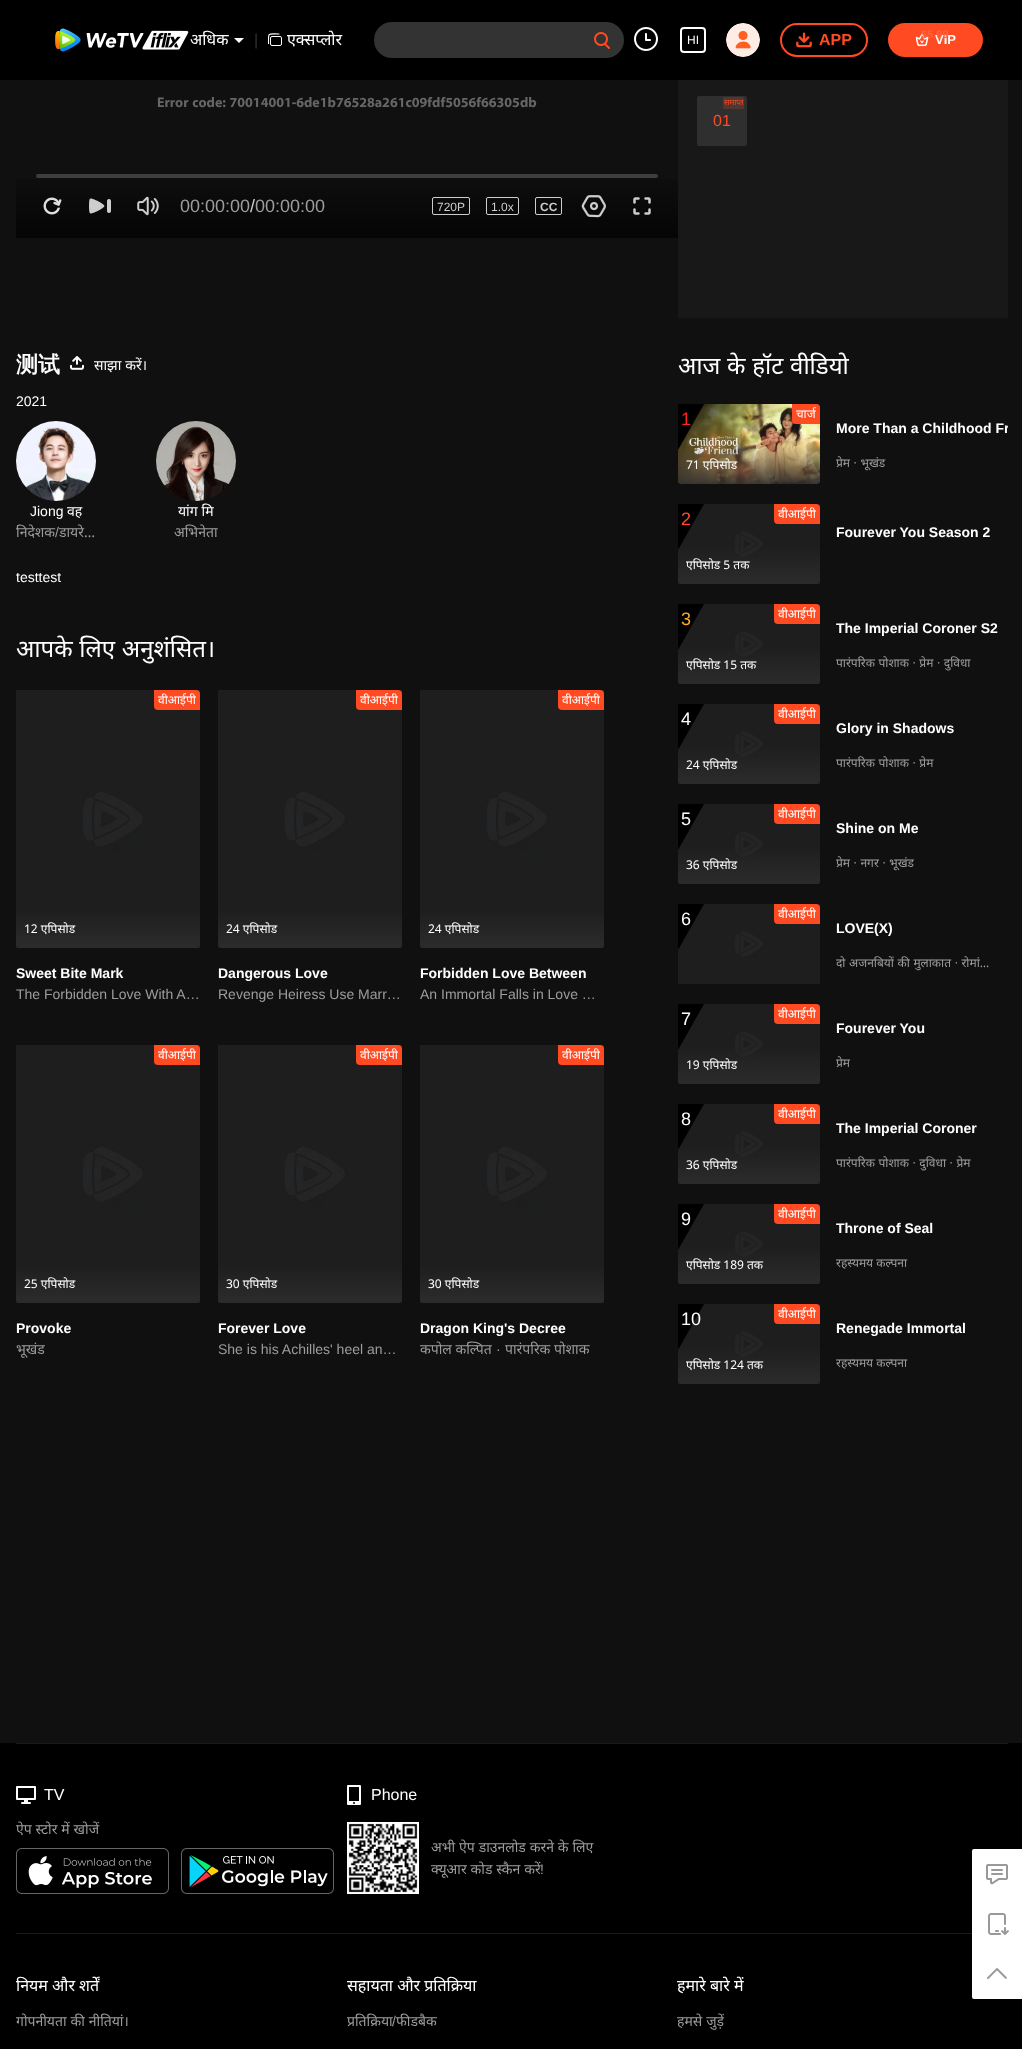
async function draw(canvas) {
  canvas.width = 1022
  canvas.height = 2049
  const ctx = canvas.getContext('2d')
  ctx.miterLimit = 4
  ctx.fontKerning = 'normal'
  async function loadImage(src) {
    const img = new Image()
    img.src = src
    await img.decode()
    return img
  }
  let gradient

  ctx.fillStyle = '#000'
  ctx.fillRect(0, 0, 1022, 2049)
  ctx.drawImage(await loadImage('image0.png'), 55, 28, 134, 24)
  ctx.font = '16px Noto Sans'
  ctx.fillStyle = '#fff'
  ctx.fillText('अधिक', 190, 45)
  ctx.beginPath()
  ctx.moveTo(234, 38)
  ctx.lineTo(244, 38)
  ctx.lineTo(239, 43)
  ctx.closePath()
  ctx.fill()
  ctx.font = '16px Liberation Sans'
  ctx.fillStyle = '#333'
  ctx.fillText('|', 254, 45)
  ctx.beginPath()
  ctx.roundRect(270.5, 36.5, 11, 9, 1.5)
  ctx.strokeStyle = '#fff'
  ctx.stroke()
  ctx.save()
  ctx.beginPath()
  ctx.rect(268, 33, 14, 14)
  ctx.clip()
  ctx.beginPath()
  ctx.moveTo(279, 34)
  ctx.bezierCurveTo(267.5, 34, 268.5, 32, 268.5, 43.5)
  ctx.lineWidth = 1.2
  ctx.lineCap = 'round'
  ctx.stroke()
  ctx.restore()
  ctx.font = '16px Noto Sans'
  ctx.fillStyle = '#fff'
  ctx.fillText('एक्सप्लोर', 287, 45)
  ctx.fillStyle = '#333'
  ctx.beginPath()
  ctx.roundRect(374, 22, 250, 36, 18)
  ctx.fill()
  ctx.drawImage(await loadImage('image1.png'), 594, 32, 16, 17)
  ctx.drawImage(await loadImage('image2.png'), 634, 27, 24, 24)
  ctx.beginPath()
  ctx.roundRect(681, 28, 24, 24, 3)
  ctx.lineWidth = 2
  ctx.stroke()
  ctx.font = '12px Liberation Sans'
  ctx.fillStyle = '#fff'
  ctx.fillText('HI', 687, 44)
  ctx.drawImage(await loadImage('image3.png'), 726, 23, 34, 34)
  ctx.beginPath()
  ctx.roundRect(781, 24, 86, 32, 16)
  ctx.strokeStyle = '#ff4a22'
  ctx.stroke()
  ctx.drawImage(await loadImage('image4.png'), 796, 32, 16, 16)
  ctx.font = 'bold 16px Liberation Sans'
  ctx.fillStyle = '#ff4a22'
  ctx.fillText('APP', 819, 45)
  ctx.beginPath()
  ctx.roundRect(888, 23, 95, 34, 17)
  ctx.fill()
  ctx.drawImage(await loadImage('image5.png'), 915, 34, 14, 13)
  ctx.font = 'bold 13px Liberation Sans'
  ctx.fillStyle = '#fff'
  ctx.fillText('VIP', 935, 44)
  ctx.font = 'bold 11px Liberation Sans'
  ctx.fillStyle = '#ff6442'
  ctx.fillText('$5.99', 921, 38)
  ctx.fillStyle = '#101010'
  ctx.fillRect(0, 80, 1022, 1663)
  ctx.font = 'bold 14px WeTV'
  ctx.fillStyle = '#666'
  ctx.fillText('Error code: 70014001-6de1b76528a261c09fdf5056f66305db', 157, 107)
  gradient = ctx.createLinearGradient(347, 154, 347, 238)
  gradient.addColorStop(0, '#111')
  gradient.addColorStop(1, '#050505')
  ctx.fillStyle = gradient
  ctx.fillRect(16, 179, 662, 59)
  ctx.fillStyle = '#3e3e3e'
  ctx.beginPath()
  ctx.roundRect(36, 174, 622, 4, 2)
  ctx.fill()
  ctx.drawImage(await loadImage('image6.png'), 43, 197, 19, 18)
  ctx.drawImage(await loadImage('image7.png'), 89, 198, 22, 16)
  ctx.drawImage(await loadImage('image8.png'), 137, 196, 22, 20)
  ctx.font = '18px Liberation Sans'
  ctx.fillStyle = '#9d9d9d'
  ctx.fillText('00:00:00', 180, 212)
  ctx.fillStyle = '#cecece'
  ctx.fillText('/', 250, 212)
  ctx.fillStyle = '#9d9d9d'
  ctx.fillText('00:00:00', 255, 212)
  ctx.beginPath()
  ctx.roundRect(432.5, 197.5, 37, 17, 1.5)
  ctx.strokeStyle = '#ffffffcc'
  ctx.lineWidth = 1
  ctx.stroke()
  ctx.font = '12px Liberation Sans'
  ctx.fillStyle = '#cecece'
  ctx.fillText('720P', 437, 211)
  ctx.beginPath()
  ctx.roundRect(486.5, 197.5, 32, 17, 1.5)
  ctx.stroke()
  ctx.fillText('1.0x', 491, 211)
  ctx.beginPath()
  ctx.roundRect(535.5, 197.5, 26, 17, 1.5)
  ctx.stroke()
  ctx.font = 'bold 12px Liberation Sans'
  ctx.fillText('CC', 540, 211)
  ctx.drawImage(await loadImage('image9.png'), 581, 195, 25, 23)
  ctx.drawImage(await loadImage('image10.png'), 633, 197, 18, 18)
  ctx.fillStyle = '#181818'
  ctx.fillRect(678, 80, 330, 238)
  ctx.fillStyle = '#2f2f2f'
  ctx.beginPath()
  ctx.roundRect(697, 96, 50, 50, 2)
  ctx.fill()
  ctx.fillStyle = '#53362e'
  ctx.beginPath()
  ctx.roundRect(723, 97, 21, 12, [0, 1.5, 0, 1.5])
  ctx.fill()
  ctx.font = '8px Noto Sans'
  ctx.fillStyle = '#ff4a22'
  ctx.fillText('समाप्त', 724, 105)
  ctx.font = '16px Liberation Sans'
  ctx.fillText('01', 713, 126)
  ctx.font = 'bold 22px WenQuanYi Zen Hei'
  ctx.fillStyle = '#fff'
  ctx.fillText('测试', 16, 372)
  ctx.drawImage(await loadImage('image11.png'), 70, 356, 14, 14)
  ctx.wordSpacing = '0.25px'
  ctx.font = '14px Noto Sans'
  ctx.fillText('साझा करें।', 94, 370)
  ctx.wordSpacing = '0px'
  ctx.font = '14px Liberation Sans'
  ctx.fillText('2021', 16, 406)
  ctx.drawImage(await loadImage('image12.png'), 16, 421, 80, 80)
  ctx.fillText('Jiong', 30, 516)
  ctx.font = '14px Noto Sans'
  ctx.fillText('वह', 67, 516)
  ctx.fillStyle = '#9d9d9d'
  ctx.fillText('निदेशक', 16, 537)
  ctx.font = '14px Liberation Sans'
  ctx.fillText('/', 55, 537)
  ctx.font = '14px Noto Sans'
  ctx.fillText('डायरे…', 59, 537)
  ctx.drawImage(await loadImage('image13.png'), 156, 421, 80, 80)
  ctx.wordSpacing = '0.25px'
  ctx.fillStyle = '#fff'
  ctx.fillText('यांग मि', 178, 516)
  ctx.wordSpacing = '0px'
  ctx.fillStyle = '#9d9d9d'
  ctx.fillText('अभिनेता', 174, 537)
  ctx.font = '14px Liberation Sans'
  ctx.fillStyle = '#fff'
  ctx.fillText('testtest', 16, 582)
  ctx.wordSpacing = '0.5px'
  ctx.font = '24px Noto Sans'
  ctx.fillText('आपके लिए अनुशंसित।', 16, 657)
  ctx.drawImage(await loadImage('image14.png'), 16, 690, 184, 258)
  ctx.fillStyle = '#ff4a22'
  ctx.beginPath()
  ctx.roundRect(154, 690, 46, 20, [0, 4, 0, 4])
  ctx.fill()
  ctx.wordSpacing = '0px'
  ctx.font = '12px Noto Sans'
  ctx.fillStyle = '#fff'
  ctx.fillText('वीआईपी', 158, 704)
  gradient = ctx.createLinearGradient(108, 948, 108, 910)
  gradient.addColorStop(0, '#2c2c2c')
  gradient.addColorStop(1, '#1e1e1e')
  ctx.fillStyle = gradient
  ctx.beginPath()
  ctx.roundRect(16, 910, 184, 38, [0, 0, 4, 4])
  ctx.fill()
  ctx.fillStyle = '#fff'
  ctx.fillText('12 एपिसोड', 24, 933)
  ctx.font = 'bold 14px Liberation Sans'
  ctx.fillText('Sweet Bite Mark', 16, 978)
  ctx.font = '14px Liberation Sans'
  ctx.fillStyle = '#9d9d9d'
  ctx.fillText('The Forbidden Love With A…', 16, 999)
  ctx.drawImage(await loadImage('image14.png'), 218, 690, 184, 258)
  ctx.fillStyle = '#ff4a22'
  ctx.beginPath()
  ctx.roundRect(356, 690, 46, 20, [0, 4, 0, 4])
  ctx.fill()
  ctx.font = '12px Noto Sans'
  ctx.fillStyle = '#fff'
  ctx.fillText('वीआईपी', 360, 704)
  gradient = ctx.createLinearGradient(310, 948, 310, 910)
  gradient.addColorStop(0, '#2c2c2c')
  gradient.addColorStop(1, '#1e1e1e')
  ctx.fillStyle = gradient
  ctx.beginPath()
  ctx.roundRect(218, 910, 184, 38, [0, 0, 4, 4])
  ctx.fill()
  ctx.fillStyle = '#fff'
  ctx.fillText('24 एपिसोड', 226, 933)
  ctx.font = 'bold 14px Liberation Sans'
  ctx.fillText('Dangerous Love', 218, 978)
  ctx.font = '14px Liberation Sans'
  ctx.fillStyle = '#9d9d9d'
  ctx.fillText('Revenge Heiress Use Marr…', 218, 999)
  ctx.drawImage(await loadImage('image14.png'), 420, 690, 184, 258)
  ctx.fillStyle = '#ff4a22'
  ctx.beginPath()
  ctx.roundRect(558, 690, 46, 20, [0, 4, 0, 4])
  ctx.fill()
  ctx.font = '12px Noto Sans'
  ctx.fillStyle = '#fff'
  ctx.fillText('वीआईपी', 562, 704)
  gradient = ctx.createLinearGradient(512, 948, 512, 910)
  gradient.addColorStop(0, '#2c2c2c')
  gradient.addColorStop(1, '#1e1e1e')
  ctx.fillStyle = gradient
  ctx.beginPath()
  ctx.roundRect(420, 910, 184, 38, [0, 0, 4, 4])
  ctx.fill()
  ctx.fillStyle = '#fff'
  ctx.fillText('24 एपिसोड', 428, 933)
  ctx.font = 'bold 14px Liberation Sans'
  ctx.fillText('Forbidden Love Between', 420, 978)
  ctx.font = '14px Liberation Sans'
  ctx.fillStyle = '#9d9d9d'
  ctx.fillText('An Immortal Falls in Love …', 420, 999)
  ctx.drawImage(await loadImage('image14.png'), 16, 1045, 184, 258)
  ctx.fillStyle = '#ff4a22'
  ctx.beginPath()
  ctx.roundRect(154, 1045, 46, 20, [0, 4, 0, 4])
  ctx.fill()
  ctx.font = '12px Noto Sans'
  ctx.fillStyle = '#fff'
  ctx.fillText('वीआईपी', 158, 1059)
  gradient = ctx.createLinearGradient(108, 1303, 108, 1265)
  gradient.addColorStop(0, '#2c2c2c')
  gradient.addColorStop(1, '#1e1e1e')
  ctx.fillStyle = gradient
  ctx.beginPath()
  ctx.roundRect(16, 1265, 184, 38, [0, 0, 4, 4])
  ctx.fill()
  ctx.fillStyle = '#fff'
  ctx.fillText('25 एपिसोड', 24, 1288)
  ctx.font = 'bold 14px Liberation Sans'
  ctx.fillText('Provoke', 16, 1333)
  ctx.save()
  ctx.beginPath()
  ctx.rect(16, 1339, 184, 21)
  ctx.clip()
  ctx.font = '14px Noto Sans'
  ctx.fillStyle = '#9d9d9d'
  ctx.fillText('भूखंड', 16, 1354)
  ctx.restore()
  ctx.drawImage(await loadImage('image14.png'), 218, 1045, 184, 258)
  ctx.fillStyle = '#ff4a22'
  ctx.beginPath()
  ctx.roundRect(356, 1045, 46, 20, [0, 4, 0, 4])
  ctx.fill()
  ctx.font = '12px Noto Sans'
  ctx.fillStyle = '#fff'
  ctx.fillText('वीआईपी', 360, 1059)
  gradient = ctx.createLinearGradient(310, 1303, 310, 1265)
  gradient.addColorStop(0, '#2c2c2c')
  gradient.addColorStop(1, '#1e1e1e')
  ctx.fillStyle = gradient
  ctx.beginPath()
  ctx.roundRect(218, 1265, 184, 38, [0, 0, 4, 4])
  ctx.fill()
  ctx.fillStyle = '#fff'
  ctx.fillText('30 एपिसोड', 226, 1288)
  ctx.font = 'bold 14px Liberation Sans'
  ctx.fillText('Forever Love', 218, 1333)
  ctx.font = '14px Liberation Sans'
  ctx.fillStyle = '#9d9d9d'
  ctx.fillText('She is his Achilles\' heel an…', 218, 1354)
  ctx.drawImage(await loadImage('image14.png'), 420, 1045, 184, 258)
  ctx.fillStyle = '#ff4a22'
  ctx.beginPath()
  ctx.roundRect(558, 1045, 46, 20, [0, 4, 0, 4])
  ctx.fill()
  ctx.font = '12px Noto Sans'
  ctx.fillStyle = '#fff'
  ctx.fillText('वीआईपी', 562, 1059)
  gradient = ctx.createLinearGradient(512, 1303, 512, 1265)
  gradient.addColorStop(0, '#2c2c2c')
  gradient.addColorStop(1, '#1e1e1e')
  ctx.fillStyle = gradient
  ctx.beginPath()
  ctx.roundRect(420, 1265, 184, 38, [0, 0, 4, 4])
  ctx.fill()
  ctx.fillStyle = '#fff'
  ctx.fillText('30 एपिसोड', 428, 1288)
  ctx.font = 'bold 14px Liberation Sans'
  ctx.fillText('Dragon King\'s Decree', 420, 1333)
  ctx.font = '14px Noto Sans'
  ctx.fillStyle = '#9d9d9d'
  ctx.fillText('कपोल कल्पित', 420, 1354)
  ctx.font = '14px Liberation Sans'
  ctx.fillText('·', 496, 1354)
  ctx.font = '14px Noto Sans'
  ctx.fillText('पारंपरिक पोशाक', 505, 1354)
  ctx.wordSpacing = '0.5px'
  ctx.font = '24px Noto Sans'
  ctx.fillStyle = '#fff'
  ctx.fillText('आज के हॉट वीडियो', 678, 374)
  ctx.drawImage(await loadImage('image15.png'), 678, 404, 142, 80)
  ctx.fillStyle = '#ff4a22'
  ctx.beginPath()
  ctx.roundRect(792, 404, 28, 20, [0, 4, 0, 4])
  ctx.fill()
  ctx.wordSpacing = '0px'
  ctx.font = '12px Noto Sans'
  ctx.fillStyle = '#fff'
  ctx.fillText('चार्ज', 796, 418)
  ctx.fillStyle = '#000'
  ctx.beginPath()
  ctx.moveTo(678, 404)
  ctx.lineTo(678, 450)
  ctx.lineTo(704, 404)
  ctx.closePath()
  ctx.fill()
  gradient = ctx.createLinearGradient(749, 484, 749, 446)
  gradient.addColorStop(0, '#2d2d2de6')
  gradient.addColorStop(1, '#2d2d2d00')
  ctx.fillStyle = gradient
  ctx.beginPath()
  ctx.roundRect(678, 446, 142, 38, [0, 0, 4, 4])
  ctx.fill()
  ctx.fillStyle = '#fff'
  ctx.fillText('71 एपिसोड', 686, 469)
  ctx.font = '18px Liberation Sans'
  ctx.fillStyle = '#f22'
  ctx.fillText('1', 681, 425)
  ctx.save()
  ctx.beginPath()
  ctx.rect(836, 418, 172, 21)
  ctx.clip()
  ctx.font = 'bold 14px Liberation Sans'
  ctx.fillStyle = '#fff'
  ctx.fillText('More Than a Childhood Fr', 836, 433)
  ctx.restore()
  ctx.save()
  ctx.beginPath()
  ctx.rect(836, 455, 156, 16)
  ctx.clip()
  ctx.wordSpacing = '0.5px'
  ctx.font = '12px Noto Sans'
  ctx.fillStyle = '#9d9d9d'
  ctx.fillText('प्रेम · भूखंड', 836, 467)
  ctx.restore()
  ctx.drawImage(await loadImage('image16.png'), 678, 504, 142, 80)
  ctx.fillStyle = '#ff4a22'
  ctx.beginPath()
  ctx.roundRect(774, 504, 46, 20, [0, 4, 0, 4])
  ctx.fill()
  ctx.font = '12px Noto Sans'
  ctx.fillStyle = '#fff'
  ctx.fillText('वीआईपी', 778, 518)
  ctx.fillStyle = '#000'
  ctx.beginPath()
  ctx.moveTo(678, 504)
  ctx.lineTo(678, 550)
  ctx.lineTo(704, 504)
  ctx.closePath()
  ctx.fill()
  gradient = ctx.createLinearGradient(749, 584, 749, 546)
  gradient.addColorStop(0, '#2d2d2de6')
  gradient.addColorStop(1, '#2d2d2d00')
  ctx.fillStyle = gradient
  ctx.beginPath()
  ctx.roundRect(678, 546, 142, 38, [0, 0, 4, 4])
  ctx.fill()
  ctx.fillStyle = '#fff'
  ctx.fillText('एपिसोड 5 तक', 686, 569)
  ctx.font = '18px Liberation Sans'
  ctx.fillStyle = '#ff4a22'
  ctx.fillText('2', 681, 525)
  ctx.font = 'bold 14px Liberation Sans'
  ctx.fillStyle = '#fff'
  ctx.fillText('Fourever You Season 2', 836, 537)
  ctx.drawImage(await loadImage('image16.png'), 678, 604, 142, 80)
  ctx.fillStyle = '#ff4a22'
  ctx.beginPath()
  ctx.roundRect(774, 604, 46, 20, [0, 4, 0, 4])
  ctx.fill()
  ctx.font = '12px Noto Sans'
  ctx.fillStyle = '#fff'
  ctx.fillText('वीआईपी', 778, 618)
  ctx.fillStyle = '#000'
  ctx.beginPath()
  ctx.moveTo(678, 604)
  ctx.lineTo(678, 650)
  ctx.lineTo(704, 604)
  ctx.closePath()
  ctx.fill()
  gradient = ctx.createLinearGradient(749, 684, 749, 646)
  gradient.addColorStop(0, '#2d2d2de6')
  gradient.addColorStop(1, '#2d2d2d00')
  ctx.fillStyle = gradient
  ctx.beginPath()
  ctx.roundRect(678, 646, 142, 38, [0, 0, 4, 4])
  ctx.fill()
  ctx.fillStyle = '#fff'
  ctx.fillText('एपिसोड 15 तक', 686, 669)
  ctx.font = '18px Liberation Sans'
  ctx.fillStyle = '#ffad22'
  ctx.fillText('3', 681, 625)
  ctx.font = 'bold 14px Liberation Sans'
  ctx.fillStyle = '#fff'
  ctx.fillText('The Imperial Coroner S2', 836, 633)
  ctx.wordSpacing = '0.5px'
  ctx.font = '12px Noto Sans'
  ctx.fillStyle = '#9d9d9d'
  ctx.fillText('पारंपरिक पोशाक · प्रेम · दुविधा', 836, 667)
  ctx.drawImage(await loadImage('image16.png'), 678, 704, 142, 80)
  ctx.fillStyle = '#ff4a22'
  ctx.beginPath()
  ctx.roundRect(774, 704, 46, 20, [0, 4, 0, 4])
  ctx.fill()
  ctx.wordSpacing = '0px'
  ctx.fillStyle = '#fff'
  ctx.fillText('वीआईपी', 778, 718)
  ctx.fillStyle = '#000'
  ctx.beginPath()
  ctx.moveTo(678, 704)
  ctx.lineTo(678, 750)
  ctx.lineTo(704, 704)
  ctx.closePath()
  ctx.fill()
  gradient = ctx.createLinearGradient(749, 784, 749, 746)
  gradient.addColorStop(0, '#2d2d2de6')
  gradient.addColorStop(1, '#2d2d2d00')
  ctx.fillStyle = gradient
  ctx.beginPath()
  ctx.roundRect(678, 746, 142, 38, [0, 0, 4, 4])
  ctx.fill()
  ctx.fillStyle = '#fff'
  ctx.fillText('24 एपिसोड', 686, 769)
  ctx.font = '18px Liberation Sans'
  ctx.fillText('4', 681, 725)
  ctx.font = 'bold 14px Liberation Sans'
  ctx.fillText('Glory in Shadows', 836, 733)
  ctx.wordSpacing = '0.5px'
  ctx.font = '12px Noto Sans'
  ctx.fillStyle = '#9d9d9d'
  ctx.fillText('पारंपरिक पोशाक · प्रेम', 836, 767)
  ctx.drawImage(await loadImage('image16.png'), 678, 804, 142, 80)
  ctx.fillStyle = '#ff4a22'
  ctx.beginPath()
  ctx.roundRect(774, 804, 46, 20, [0, 4, 0, 4])
  ctx.fill()
  ctx.wordSpacing = '0px'
  ctx.fillStyle = '#fff'
  ctx.fillText('वीआईपी', 778, 818)
  ctx.fillStyle = '#000'
  ctx.beginPath()
  ctx.moveTo(678, 804)
  ctx.lineTo(678, 850)
  ctx.lineTo(704, 804)
  ctx.closePath()
  ctx.fill()
  gradient = ctx.createLinearGradient(749, 884, 749, 846)
  gradient.addColorStop(0, '#2d2d2de6')
  gradient.addColorStop(1, '#2d2d2d00')
  ctx.fillStyle = gradient
  ctx.beginPath()
  ctx.roundRect(678, 846, 142, 38, [0, 0, 4, 4])
  ctx.fill()
  ctx.fillStyle = '#fff'
  ctx.fillText('36 एपिसोड', 686, 869)
  ctx.font = '18px Liberation Sans'
  ctx.fillText('5', 681, 825)
  ctx.font = 'bold 14px Liberation Sans'
  ctx.fillText('Shine on Me', 836, 833)
  ctx.save()
  ctx.beginPath()
  ctx.rect(836, 855, 156, 16)
  ctx.clip()
  ctx.wordSpacing = '0.5px'
  ctx.font = '12px Noto Sans'
  ctx.fillStyle = '#9d9d9d'
  ctx.fillText('प्रेम · नगर · भूखंड', 836, 867)
  ctx.restore()
  ctx.drawImage(await loadImage('image16.png'), 678, 904, 142, 80)
  ctx.fillStyle = '#000'
  ctx.beginPath()
  ctx.moveTo(678, 904)
  ctx.lineTo(678, 950)
  ctx.lineTo(704, 904)
  ctx.closePath()
  ctx.fill()
  ctx.font = '18px Liberation Sans'
  ctx.fillStyle = '#fff'
  ctx.fillText('6', 681, 925)
  ctx.fillStyle = '#ff4a22'
  ctx.beginPath()
  ctx.roundRect(774, 904, 46, 20, [0, 4, 0, 4])
  ctx.fill()
  ctx.font = '12px Noto Sans'
  ctx.fillStyle = '#fff'
  ctx.fillText('वीआईपी', 778, 918)
  ctx.font = 'bold 14px Liberation Sans'
  ctx.fillText('LOVE(X)', 836, 933)
  ctx.save()
  ctx.beginPath()
  ctx.rect(836, 955, 156, 16)
  ctx.clip()
  ctx.wordSpacing = '0.5px'
  ctx.font = '12px Noto Sans'
  ctx.fillStyle = '#9d9d9d'
  ctx.fillText('दो अजनबियों की मुलाकात · रोमां…', 836, 967)
  ctx.restore()
  ctx.drawImage(await loadImage('image16.png'), 678, 1004, 142, 80)
  ctx.fillStyle = '#000'
  ctx.beginPath()
  ctx.moveTo(678, 1004)
  ctx.lineTo(678, 1050)
  ctx.lineTo(704, 1004)
  ctx.closePath()
  ctx.fill()
  ctx.font = '18px Liberation Sans'
  ctx.fillStyle = '#fff'
  ctx.fillText('7', 681, 1025)
  ctx.fillStyle = '#ff4a22'
  ctx.beginPath()
  ctx.roundRect(774, 1004, 46, 20, [0, 4, 0, 4])
  ctx.fill()
  ctx.font = '12px Noto Sans'
  ctx.fillStyle = '#fff'
  ctx.fillText('वीआईपी', 778, 1018)
  gradient = ctx.createLinearGradient(749, 1084, 749, 1046)
  gradient.addColorStop(0, '#2d2d2de6')
  gradient.addColorStop(1, '#2d2d2d00')
  ctx.fillStyle = gradient
  ctx.beginPath()
  ctx.roundRect(678, 1046, 142, 38, [0, 0, 4, 4])
  ctx.fill()
  ctx.fillStyle = '#fff'
  ctx.fillText('19 एपिसोड', 686, 1069)
  ctx.font = 'bold 14px Liberation Sans'
  ctx.fillText('Fourever You', 836, 1033)
  ctx.save()
  ctx.beginPath()
  ctx.rect(836, 1055, 156, 16)
  ctx.clip()
  ctx.font = '12px Noto Sans'
  ctx.fillStyle = '#9d9d9d'
  ctx.fillText('प्रेम', 836, 1067)
  ctx.restore()
  ctx.drawImage(await loadImage('image16.png'), 678, 1104, 142, 80)
  ctx.fillStyle = '#ff4a22'
  ctx.beginPath()
  ctx.roundRect(774, 1104, 46, 20, [0, 4, 0, 4])
  ctx.fill()
  ctx.font = '12px Noto Sans'
  ctx.fillStyle = '#fff'
  ctx.fillText('वीआईपी', 778, 1118)
  ctx.fillStyle = '#000'
  ctx.beginPath()
  ctx.moveTo(678, 1104)
  ctx.lineTo(678, 1150)
  ctx.lineTo(704, 1104)
  ctx.closePath()
  ctx.fill()
  gradient = ctx.createLinearGradient(749, 1184, 749, 1146)
  gradient.addColorStop(0, '#2d2d2de6')
  gradient.addColorStop(1, '#2d2d2d00')
  ctx.fillStyle = gradient
  ctx.beginPath()
  ctx.roundRect(678, 1146, 142, 38, [0, 0, 4, 4])
  ctx.fill()
  ctx.fillStyle = '#fff'
  ctx.fillText('36 एपिसोड', 686, 1169)
  ctx.font = '18px Liberation Sans'
  ctx.fillText('8', 681, 1125)
  ctx.font = 'bold 14px Liberation Sans'
  ctx.fillText('The Imperial Coroner', 836, 1133)
  ctx.wordSpacing = '0.5px'
  ctx.font = '12px Noto Sans'
  ctx.fillStyle = '#9d9d9d'
  ctx.fillText('पारंपरिक पोशाक · दुविधा · प्रेम', 836, 1167)
  ctx.drawImage(await loadImage('image16.png'), 678, 1204, 142, 80)
  ctx.fillStyle = '#ff4a22'
  ctx.beginPath()
  ctx.roundRect(774, 1204, 46, 20, [0, 4, 0, 4])
  ctx.fill()
  ctx.wordSpacing = '0px'
  ctx.fillStyle = '#fff'
  ctx.fillText('वीआईपी', 778, 1218)
  ctx.fillStyle = '#000'
  ctx.beginPath()
  ctx.moveTo(678, 1204)
  ctx.lineTo(678, 1250)
  ctx.lineTo(704, 1204)
  ctx.closePath()
  ctx.fill()
  gradient = ctx.createLinearGradient(749, 1284, 749, 1246)
  gradient.addColorStop(0, '#2d2d2de6')
  gradient.addColorStop(1, '#2d2d2d00')
  ctx.fillStyle = gradient
  ctx.beginPath()
  ctx.roundRect(678, 1246, 142, 38, [0, 0, 4, 4])
  ctx.fill()
  ctx.fillStyle = '#fff'
  ctx.fillText('एपिसोड 189 तक', 686, 1269)
  ctx.font = '18px Liberation Sans'
  ctx.fillText('9', 681, 1225)
  ctx.font = 'bold 14px Liberation Sans'
  ctx.fillText('Throne of Seal', 836, 1233)
  ctx.font = '12px Noto Sans'
  ctx.fillStyle = '#9d9d9d'
  ctx.fillText('रहस्यमय कल्पना', 836, 1267)
  ctx.drawImage(await loadImage('image16.png'), 678, 1304, 142, 80)
  ctx.fillStyle = '#ff4a22'
  ctx.beginPath()
  ctx.roundRect(774, 1304, 46, 20, [0, 4, 0, 4])
  ctx.fill()
  ctx.fillStyle = '#fff'
  ctx.fillText('वीआईपी', 778, 1318)
  ctx.fillStyle = '#000'
  ctx.beginPath()
  ctx.moveTo(678, 1304)
  ctx.lineTo(678, 1350)
  ctx.lineTo(704, 1304)
  ctx.closePath()
  ctx.fill()
  gradient = ctx.createLinearGradient(749, 1384, 749, 1346)
  gradient.addColorStop(0, '#2d2d2de6')
  gradient.addColorStop(1, '#2d2d2d00')
  ctx.fillStyle = gradient
  ctx.beginPath()
  ctx.roundRect(678, 1346, 142, 38, [0, 0, 4, 4])
  ctx.fill()
  ctx.fillStyle = '#fff'
  ctx.fillText('एपिसोड 124 तक', 686, 1369)
  ctx.font = '18px Liberation Sans'
  ctx.fillText('10', 681, 1325)
  ctx.font = 'bold 14px Liberation Sans'
  ctx.fillText('Renegade Immortal', 836, 1333)
  ctx.font = '12px Noto Sans'
  ctx.fillStyle = '#9d9d9d'
  ctx.fillText('रहस्यमय कल्पना', 836, 1367)
  ctx.fillStyle = '#1a1a1a'
  ctx.fillRect(16, 1743, 992, 1)
  ctx.drawImage(await loadImage('image17.png'), 16, 1786, 20, 18)
  ctx.font = '16px Liberation Sans'
  ctx.fillStyle = '#fff'
  ctx.fillText('TV', 44, 1800)
  ctx.save()
  ctx.beginPath()
  ctx.rect(16, 1743, 992, 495)
  ctx.clip()
  ctx.wordSpacing = '0.25px'
  ctx.font = '14px Noto Sans'
  ctx.fillStyle = '#9d9d9d'
  ctx.fillText('ऐप स्टोर में खोजें', 16, 1834)
  ctx.restore()
  ctx.drawImage(await loadImage('image18.png'), 16, 1848, 153, 46)
  ctx.drawImage(await loadImage('image19.png'), 181, 1848, 153, 46)
  ctx.drawImage(await loadImage('image20.png'), 347, 1785, 14, 20)
  ctx.fillText('Phone', 371, 1800)
  ctx.drawImage(await loadImage('image21.png'), 347, 1822, 72, 72)
  ctx.wordSpacing = '0.25px'
  ctx.font = '14px Noto Sans'
  ctx.fillStyle = '#9d9d9d'
  ctx.fillText('अभी ऐप डाउनलोड करने के लिए', 431, 1852)
  ctx.fillText('क्यूआर कोड स्कैन करें', 431, 1874)
  ctx.wordSpacing = '0px'
  ctx.font = '14px Liberation Sans'
  ctx.fillText('!', 540, 1874)
  ctx.fillStyle = '#1a1a1a'
  ctx.fillRect(16, 1933, 956, 1)
  ctx.font = '16px Noto Sans'
  ctx.fillStyle = '#fff'
  ctx.fillText('नियम और शर्तें', 16, 1991)
  ctx.save()
  ctx.beginPath()
  ctx.rect(16, 1743, 992, 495)
  ctx.clip()
  ctx.wordSpacing = '0.25px'
  ctx.font = '14px Noto Sans'
  ctx.fillStyle = '#9d9d9d'
  ctx.fillText('गोपनीयता की नीतियां।', 16, 2026)
  ctx.restore()
  ctx.fillText('सहायता और प्रतिक्रिया', 347, 1991)
  ctx.font = '14px Noto Sans'
  ctx.fillStyle = '#9d9d9d'
  ctx.fillText('प्रतिक्रिया', 347, 2026)
  ctx.font = '14px Liberation Sans'
  ctx.fillText('/', 392, 2026)
  ctx.font = '14px Noto Sans'
  ctx.fillText('फीडबैक', 396, 2026)
  ctx.font = '16px Noto Sans'
  ctx.fillStyle = '#fff'
  ctx.fillText('हमारे बारे में', 677, 1991)
  ctx.wordSpacing = '0.25px'
  ctx.font = '14px Noto Sans'
  ctx.fillStyle = '#9d9d9d'
  ctx.fillText('हमसे जुड़ें', 677, 2026)
  ctx.fillStyle = '#fff'
  ctx.beginPath()
  ctx.roundRect(972, 1849, 50, 150, [2, 0, 0, 2])
  ctx.fill()
  ctx.drawImage(await loadImage('image22.png'), 986, 1864, 22, 21)
  ctx.drawImage(await loadImage('image23.png'), 988, 1913, 21, 22)
  ctx.drawImage(await loadImage('image24.png'), 987, 1968, 20, 11)
}

draw(document.querySelector('canvas'))
